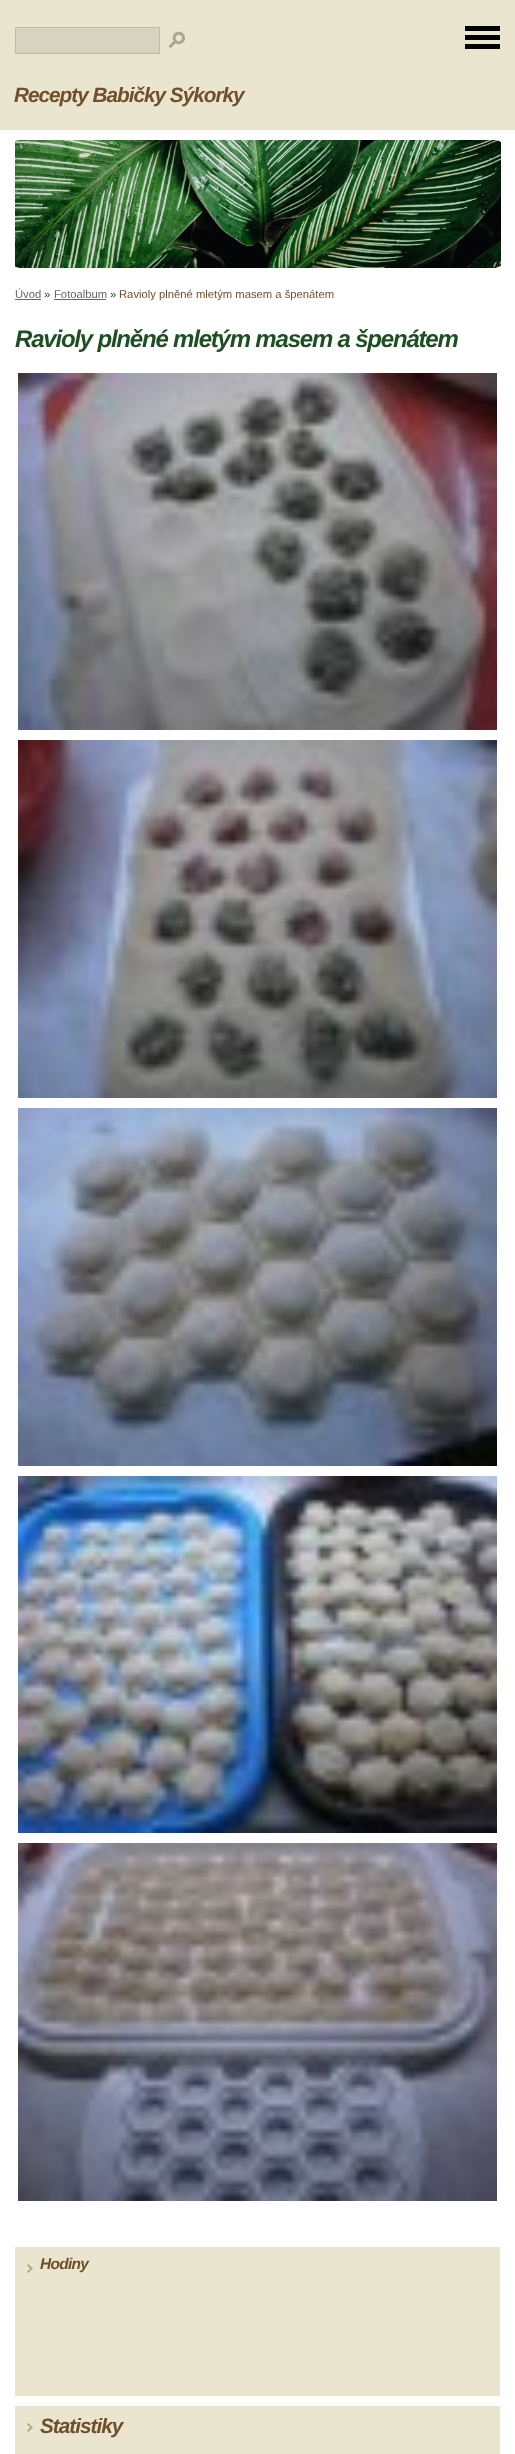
async function draw(canvas) {
  canvas.width = 515
  canvas.height = 2454
  const ctx = canvas.getContext('2d')
  ctx.miterLimit = 4
  ctx.fontKerning = 'normal'
  async function loadImage(src) {
    const img = new Image()
    img.src = src
    await img.decode()
    return img
  }

  ctx.fillStyle = '#eae5ce'
  ctx.fillRect(0, 0, 515, 2454)
  ctx.fillStyle = '#fff'
  ctx.fillRect(0, 130, 515, 2324)
  ctx.fillStyle = '#000'
  ctx.fillRect(465, 26, 35, 5)
  ctx.fillRect(465, 35, 35, 5)
  ctx.fillRect(465, 44, 35, 5)
  ctx.drawImage(await loadImage('image0.png'), 15, 140, 486, 128)
  ctx.beginPath()
  ctx.roundRect(5, 135, 505, 138, 15)
  ctx.strokeStyle = '#fff'
  ctx.lineWidth = 10
  ctx.stroke()
  ctx.letterSpacing = '-1px'
  ctx.font = 'italic bold 20.75px Liberation Sans'
  ctx.fillStyle = '#70502b'
  ctx.fillText('Recepty Babičky Sýkorky', 14, 102)
  ctx.letterSpacing = '0px'
  ctx.font = '11.25px Liberation Sans'
  ctx.fillStyle = '#666'
  ctx.fillText('Úvod', 15, 298)
  ctx.fillRect(15, 299, 26, 1)
  ctx.fillStyle = '#1e4f22'
  ctx.fillText('»', 44, 298)
  ctx.fillStyle = '#666'
  ctx.fillText('Fotoalbum', 54, 298)
  ctx.fillRect(54, 299, 52, 1)
  ctx.fillStyle = '#1e4f22'
  ctx.fillText('»', 110, 298)
  ctx.fillStyle = '#70502b'
  ctx.fillText('Ravioly plněné mletým masem a špenátem', 119, 298)
  ctx.letterSpacing = '-1.2px'
  ctx.font = 'italic bold 24px Liberation Sans'
  ctx.fillStyle = '#1e4f22'
  ctx.fillText('Ravioly plněné mletým masem a špenátem', 15, 347)
  ctx.drawImage(await loadImage('image1.png'), 18, 373, 479, 357)
  ctx.drawImage(await loadImage('image2.png'), 18, 740, 479, 358)
  ctx.drawImage(await loadImage('image3.png'), 18, 1108, 479, 358)
  ctx.drawImage(await loadImage('image4.png'), 18, 1476, 479, 357)
  ctx.drawImage(await loadImage('image5.png'), 18, 1843, 479, 358)
  ctx.fillStyle = '#d7d3be'
  ctx.beginPath()
  ctx.rect(15.5, 27.5, 144, 26)
  ctx.fill()
  ctx.strokeStyle = '#c0bb9d'
  ctx.lineWidth = 1
  ctx.stroke()
  ctx.drawImage(await loadImage('image6.png'), 168, 28, 22, 23)
  ctx.fillStyle = '#eae5ce'
  ctx.fillRect(15, 2247, 485, 149)
  ctx.drawImage(await loadImage('image7.png'), 27, 2264, 6, 9)
  ctx.letterSpacing = '-0.75px'
  ctx.font = 'italic bold 15.5px Liberation Sans'
  ctx.fillStyle = '#70502b'
  ctx.fillText('Hodiny', 40, 2269)
  ctx.fillStyle = '#eae5ce'
  ctx.fillRect(15, 2406, 485, 48)
  ctx.drawImage(await loadImage('image7.png'), 27, 2423, 6, 9)
  ctx.letterSpacing = '-1px'
  ctx.font = 'italic bold 20.75px Liberation Sans'
  ctx.fillStyle = '#70502b'
  ctx.fillText('Statistiky', 40, 2433)
}

draw(document.querySelector('canvas'))
